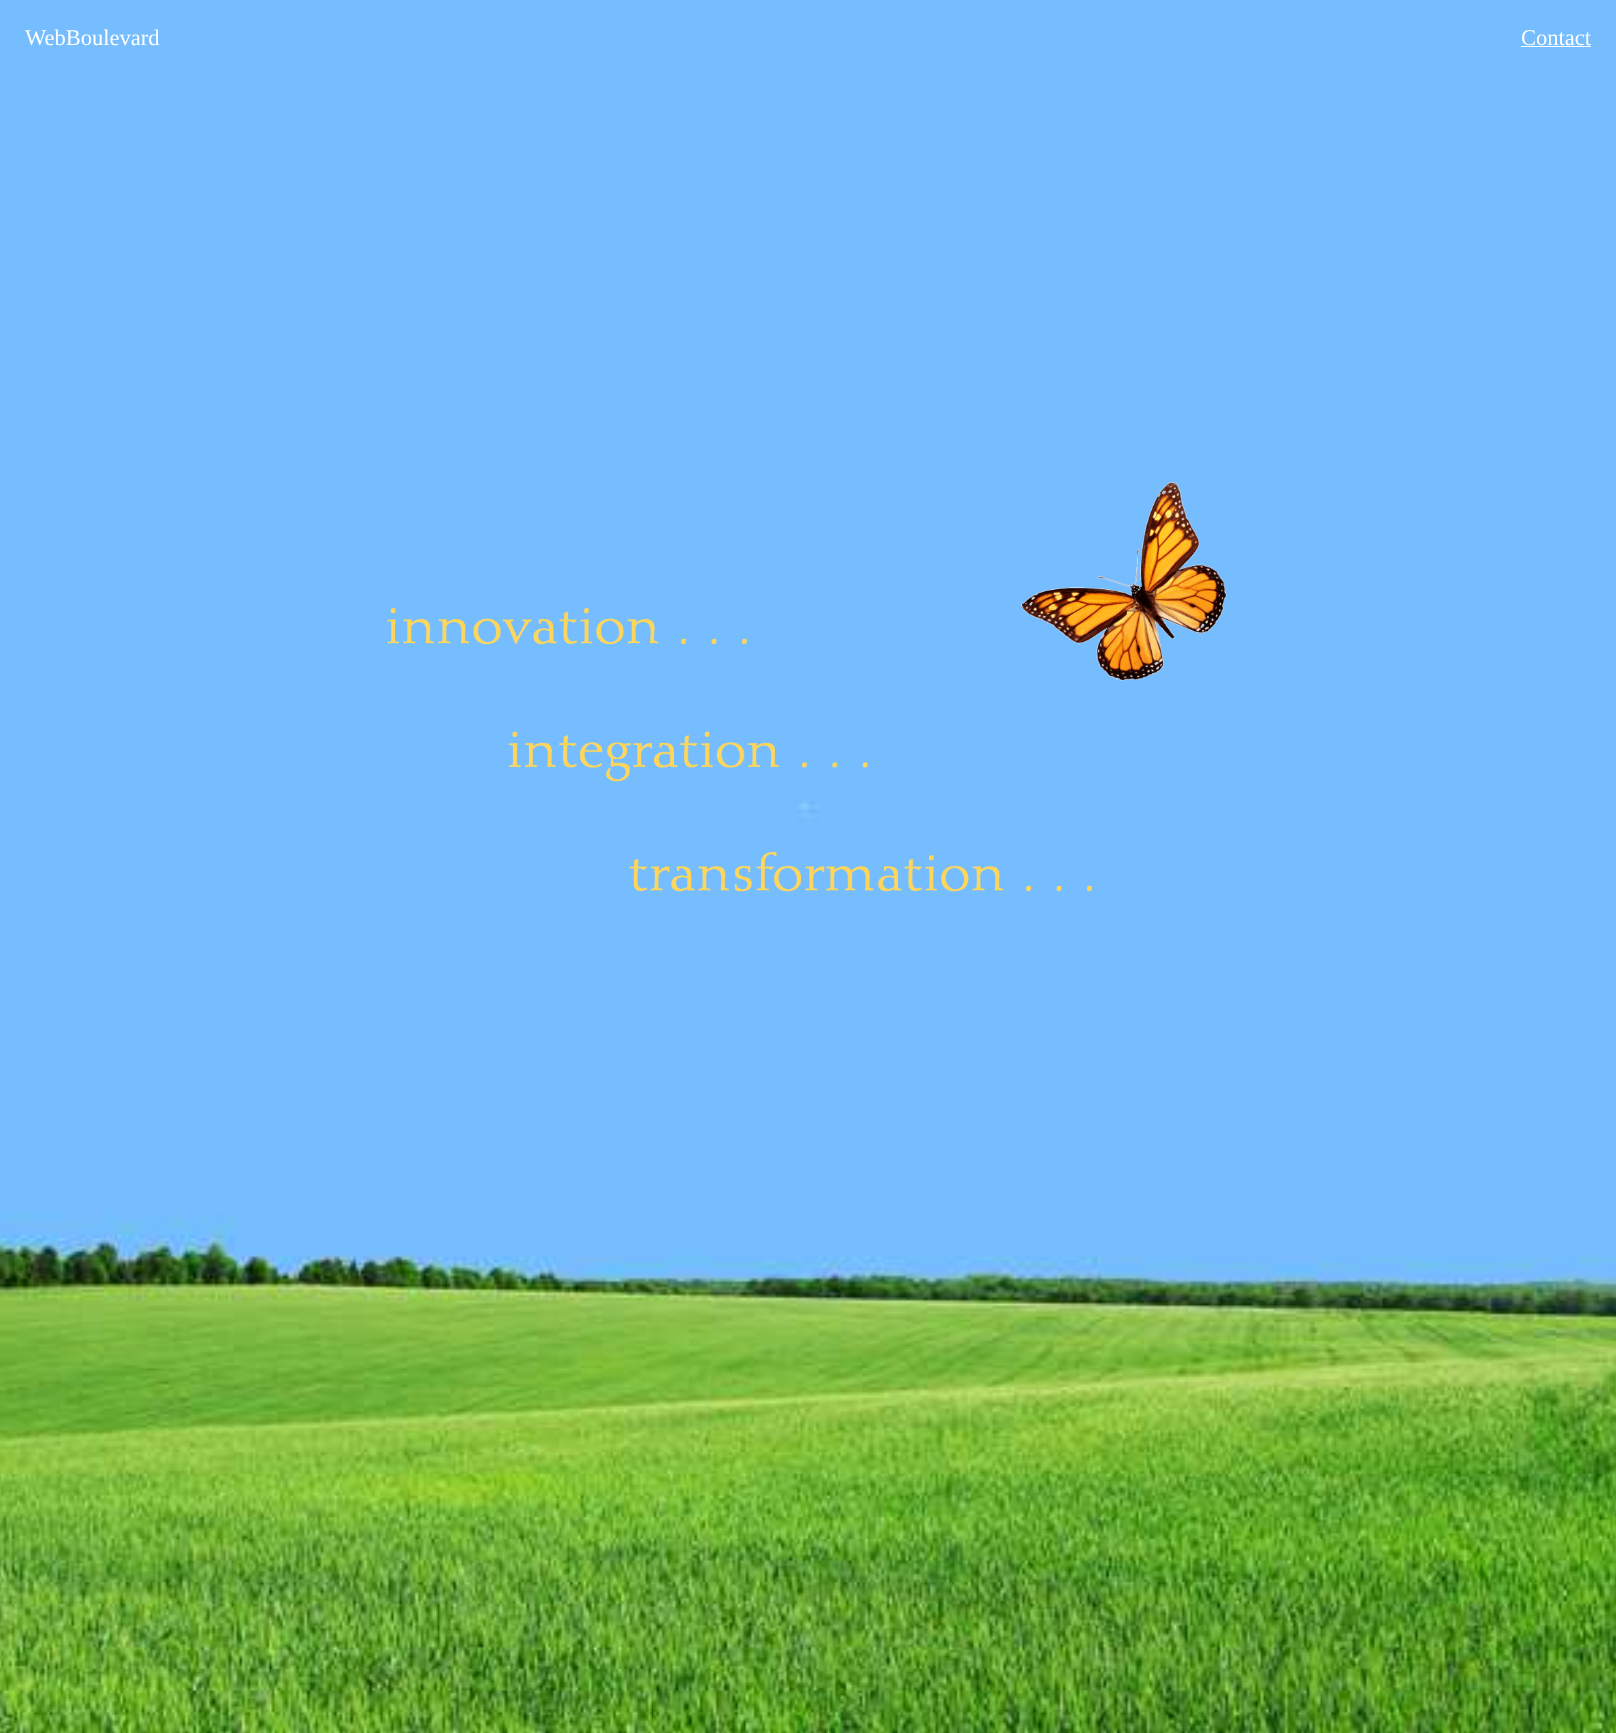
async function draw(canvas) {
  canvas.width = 1616
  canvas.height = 1733
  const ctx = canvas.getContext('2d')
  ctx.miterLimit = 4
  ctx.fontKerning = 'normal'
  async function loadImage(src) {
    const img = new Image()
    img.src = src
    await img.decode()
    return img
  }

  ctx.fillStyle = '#fff'
  ctx.fillRect(0, 0, 1616, 1733)
  ctx.drawImage(await loadImage('image0.png'), 0, 0, 1616, 1733)
  ctx.font = '22.5px Liberation Serif'
  ctx.fillText('WebBoulevard', 25, 45)
  ctx.fillText('Contact', 1521, 45)
  ctx.fillRect(1521, 46, 70, 1)
  ctx.drawImage(await loadImage('image1.png'), 387, 482, 840, 410)
}

draw(document.querySelector('canvas'))
